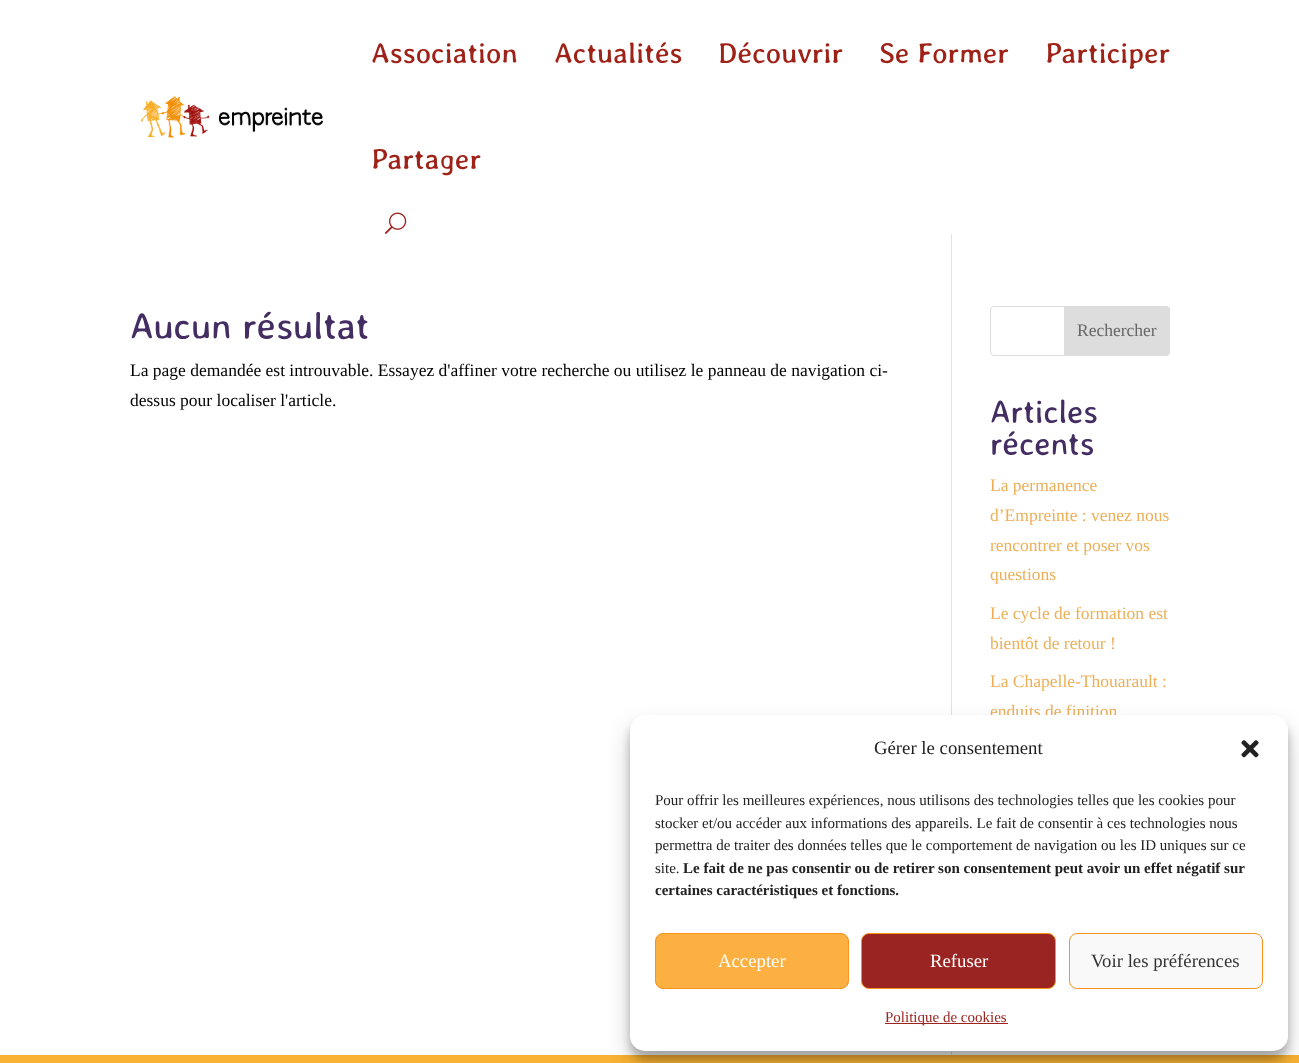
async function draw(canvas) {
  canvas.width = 1299
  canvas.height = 1063
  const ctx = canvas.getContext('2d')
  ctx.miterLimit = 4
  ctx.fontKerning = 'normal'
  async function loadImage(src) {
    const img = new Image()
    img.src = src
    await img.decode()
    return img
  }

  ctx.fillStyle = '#fff'
  ctx.fillRect(0, 0, 1299, 1063)
  ctx.drawImage(await loadImage('image0.png'), 140, 96, 183, 42)
  ctx.font = '28.75px Averia Libre'
  ctx.fillStyle = '#9e2218'
  ctx.fillText('Association', 371, 63)
  ctx.fillText('Actualités', 554, 63)
  ctx.fillText('Découvrir', 718, 63)
  ctx.fillText('Se Former', 879, 63)
  ctx.fillText('Participer', 1045, 63)
  ctx.fillText('Partager', 371, 169)
  ctx.drawImage(await loadImage('image1.png'), 385, 212, 22, 22)
  ctx.fillStyle = '#e2e2e2'
  ctx.fillRect(951, 234, 1, 821)
  ctx.font = '37.5px Averia Sans Libre'
  ctx.fillStyle = '#432d62'
  ctx.fillText('Aucun résultat', 130, 339)
  ctx.font = '17.5px Liberation Serif'
  ctx.fillStyle = '#000'
  ctx.fillText('La page demandée est introuvable. Essayez d\'affiner votre recherche ou utilisez le panneau de navigation ci-', 130, 376)
  ctx.fillText('dessus pour localiser l\'article.', 130, 406)
  ctx.beginPath()
  ctx.roundRect(990.5, 306.5, 179, 49, 3.5)
  ctx.strokeStyle = '#ddd'
  ctx.stroke()
  ctx.fillStyle = '#ddd'
  ctx.beginPath()
  ctx.roundRect(1064.5, 306.5, 105, 49, [0, 3.5, 3.5, 0])
  ctx.fill()
  ctx.stroke()
  ctx.fillStyle = '#666'
  ctx.fillText('Rechercher', 1077, 336)
  ctx.font = '32.5px Averia Sans Libre'
  ctx.fillStyle = '#432d62'
  ctx.fillText('Articles', 990, 423)
  ctx.fillText('récents', 990, 455)
  ctx.font = '17.5px Liberation Serif'
  ctx.fillStyle = '#edb059'
  ctx.fillText('La permanence', 990, 491)
  ctx.fillText('d’Empreinte : venez nous', 990, 521)
  ctx.fillText('rencontrer et poser vos', 990, 551)
  ctx.fillText('questions', 990, 580)
  ctx.fillText('Le cycle de formation est', 990, 619)
  ctx.fillText('bientôt de retour !', 990, 649)
  ctx.fillText('La Chapelle-Thouarault :', 990, 687)
  ctx.fillText('enduits de finition', 990, 717)
  ctx.fillStyle = '#f9b233'
  ctx.fillRect(0, 1055, 1299, 8)
  ctx.fillStyle = '#0000003b'
  ctx.filter = 'blur(4px)'
  ctx.beginPath()
  ctx.roundRect(630, 723, 658, 336, 15)
  ctx.fill()
  ctx.filter = 'none'
  ctx.fillStyle = '#00000030'
  ctx.filter = 'blur(12.5px)'
  ctx.beginPath()
  ctx.roundRect(630, 728, 658, 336, 15)
  ctx.fill()
  ctx.filter = 'none'
  ctx.fillStyle = '#fff'
  ctx.beginPath()
  ctx.roundRect(630, 715, 658, 336, 15)
  ctx.fill()
  ctx.font = '18.75px Liberation Serif'
  ctx.fillStyle = '#222'
  ctx.fillText('Gérer le consentement', 874, 754)
  ctx.drawImage(await loadImage('image2.png'), 1241, 740, 18, 18)
  ctx.font = '15px Liberation Serif'
  ctx.fillText('Pour offrir les meilleures expériences, nous utilisons des technologies telles que les cookies pour', 655, 805)
  ctx.fillText('stocker et/ou accéder aux informations des appareils. Le fait de consentir à ces technologies nous', 655, 828)
  ctx.fillText('permettra de traiter des données telles que le comportement de navigation ou les ID uniques sur ce', 655, 850)
  ctx.fillText('site.', 655, 873)
  ctx.font = 'bold 15px Liberation Serif'
  ctx.fillText('Le fait de ne pas consentir ou de retirer son consentement peut avoir un effet négatif sur', 683, 873)
  ctx.fillText('certaines caractéristiques et fonctions.', 655, 895)
  ctx.fillStyle = '#fbb041'
  ctx.beginPath()
  ctx.roundRect(655.5, 933.5, 193, 55, 7.5)
  ctx.fill()
  ctx.strokeStyle = '#f7931e'
  ctx.stroke()
  ctx.font = '18.75px Liberation Serif'
  ctx.fillStyle = '#fff'
  ctx.fillText('Accepter', 718, 967)
  ctx.fillStyle = '#9a2421'
  ctx.beginPath()
  ctx.roundRect(861.5, 933.5, 194, 55, 7.5)
  ctx.fill()
  ctx.stroke()
  ctx.fillStyle = '#fff'
  ctx.fillText('Refuser', 930, 967)
  ctx.fillStyle = '#f9f9f9'
  ctx.beginPath()
  ctx.roundRect(1069.5, 933.5, 193, 55, 7.5)
  ctx.fill()
  ctx.stroke()
  ctx.fillStyle = '#333'
  ctx.fillText('Voir les préférences', 1091, 967)
  ctx.fillStyle = '#9a2421'
  ctx.fillRect(885, 1023, 123, 1)
  ctx.font = '15px Liberation Serif'
  ctx.fillText('Politique de cookies', 885, 1022)
}

draw(document.querySelector('canvas'))
